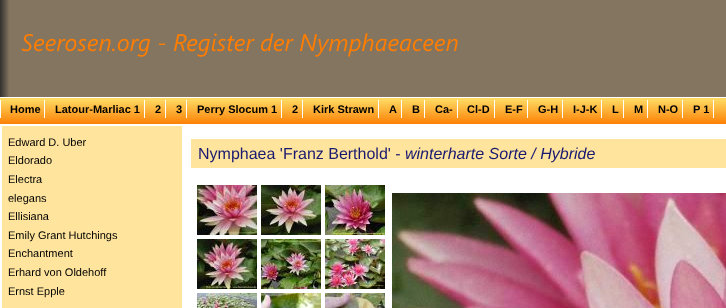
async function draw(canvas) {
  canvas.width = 726
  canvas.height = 308
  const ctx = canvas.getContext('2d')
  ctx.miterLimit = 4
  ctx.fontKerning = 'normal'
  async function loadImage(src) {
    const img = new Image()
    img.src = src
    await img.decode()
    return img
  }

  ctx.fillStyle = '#fff'
  ctx.fillRect(0, 0, 726, 308)
  ctx.fillStyle = '#837560'
  ctx.fillRect(9, 0, 717, 97)
  ctx.drawImage(await loadImage('image0.png'), 0, 0, 9, 97)
  ctx.drawImage(await loadImage('image1.png'), 21, 33, 437, 24)
  ctx.drawImage(await loadImage('image2.png'), 0, 98, 726, 26)
  ctx.fillStyle = '#fff'
  ctx.fillRect(0, 100, 1, 18)
  ctx.font = 'bold 11px Liberation Sans'
  ctx.fillStyle = '#000'
  ctx.fillText('Home', 10, 113)
  ctx.fillStyle = '#fff'
  ctx.fillRect(44, 100, 1, 18)
  ctx.fillStyle = '#000'
  ctx.fillText('Latour-Marliac 1', 55, 113)
  ctx.fillStyle = '#fff'
  ctx.fillRect(144, 100, 1, 18)
  ctx.fillStyle = '#000'
  ctx.fillText('2', 155, 113)
  ctx.fillStyle = '#fff'
  ctx.fillRect(165, 100, 1, 18)
  ctx.fillStyle = '#000'
  ctx.fillText('3', 176, 113)
  ctx.fillStyle = '#fff'
  ctx.fillRect(186, 100, 1, 18)
  ctx.fillStyle = '#000'
  ctx.fillText('Perry Slocum 1', 197, 113)
  ctx.fillStyle = '#fff'
  ctx.fillRect(281, 100, 1, 18)
  ctx.fillStyle = '#000'
  ctx.fillText('2', 292, 113)
  ctx.fillStyle = '#fff'
  ctx.fillRect(302, 100, 1, 18)
  ctx.fillStyle = '#000'
  ctx.fillText('Kirk Strawn', 313, 113)
  ctx.fillStyle = '#fff'
  ctx.fillRect(378, 100, 1, 18)
  ctx.fillStyle = '#000'
  ctx.fillText('A', 389, 113)
  ctx.fillStyle = '#fff'
  ctx.fillRect(401, 100, 1, 18)
  ctx.fillStyle = '#000'
  ctx.fillText('B', 412, 113)
  ctx.fillStyle = '#fff'
  ctx.fillRect(424, 100, 1, 18)
  ctx.fillStyle = '#000'
  ctx.fillText('Ca-', 435, 113)
  ctx.fillStyle = '#fff'
  ctx.fillRect(457, 100, 1, 18)
  ctx.fillStyle = '#000'
  ctx.fillText('Cl-D', 467, 113)
  ctx.fillStyle = '#fff'
  ctx.fillRect(494, 100, 1, 18)
  ctx.fillStyle = '#000'
  ctx.fillText('E-F', 505, 113)
  ctx.fillStyle = '#fff'
  ctx.fillRect(527, 100, 1, 18)
  ctx.fillStyle = '#000'
  ctx.fillText('G-H', 538, 113)
  ctx.fillStyle = '#fff'
  ctx.fillRect(562, 100, 1, 18)
  ctx.fillStyle = '#000'
  ctx.fillText('I-J-K', 573, 113)
  ctx.fillStyle = '#fff'
  ctx.fillRect(601, 100, 1, 18)
  ctx.fillStyle = '#000'
  ctx.fillText('L', 612, 113)
  ctx.fillStyle = '#fff'
  ctx.fillRect(623, 100, 1, 18)
  ctx.fillStyle = '#000'
  ctx.fillText('M', 634, 113)
  ctx.fillStyle = '#fff'
  ctx.fillRect(647, 100, 1, 18)
  ctx.fillStyle = '#000'
  ctx.fillText('N-O', 658, 113)
  ctx.fillStyle = '#fff'
  ctx.fillRect(682, 100, 1, 18)
  ctx.fillStyle = '#000'
  ctx.fillText('P 1', 693, 113)
  ctx.fillStyle = '#fff'
  ctx.fillRect(713, 100, 1, 18)
  ctx.fillStyle = '#ffe49d'
  ctx.fillRect(2, 126, 180, 182)
  ctx.font = '11px Liberation Sans'
  ctx.fillStyle = '#000'
  ctx.fillText('Edward D. Uber', 8, 146)
  ctx.fillText('Eldorado', 8, 164)
  ctx.fillText('Electra', 8, 183)
  ctx.fillText('elegans', 8, 202)
  ctx.fillText('Ellisiana', 8, 220)
  ctx.fillText('Emily Grant Hutchings', 8, 239)
  ctx.fillText('Enchantment', 8, 257)
  ctx.fillText('Erhard von Oldehoff', 8, 276)
  ctx.fillText('Ernst Epple', 8, 295)
  ctx.fillStyle = '#ffe49d'
  ctx.fillRect(191, 139, 535, 29)
  ctx.font = '16px Liberation Sans'
  ctx.fillStyle = '#191970'
  ctx.fillText('Nymphaea \'Franz Berthold\' -', 198, 159)
  ctx.font = 'italic 16px Liberation Sans'
  ctx.fillText('winterharte Sorte / Hybride', 405, 159)
  ctx.drawImage(await loadImage('image3.png'), 197, 185, 60, 50)
  ctx.drawImage(await loadImage('image4.png'), 261, 185, 60, 50)
  ctx.drawImage(await loadImage('image5.png'), 325, 185, 60, 50)
  ctx.drawImage(await loadImage('image6.png'), 197, 239, 60, 50)
  ctx.drawImage(await loadImage('image7.png'), 261, 239, 60, 50)
  ctx.drawImage(await loadImage('image8.png'), 325, 239, 60, 50)
  ctx.drawImage(await loadImage('image9.png'), 197, 293, 60, 15)
  ctx.drawImage(await loadImage('image10.png'), 261, 293, 60, 15)
  ctx.drawImage(await loadImage('image11.png'), 325, 293, 60, 15)
  ctx.drawImage(await loadImage('image12.png'), 392, 193, 334, 115)
}

draw(document.querySelector('canvas'))
